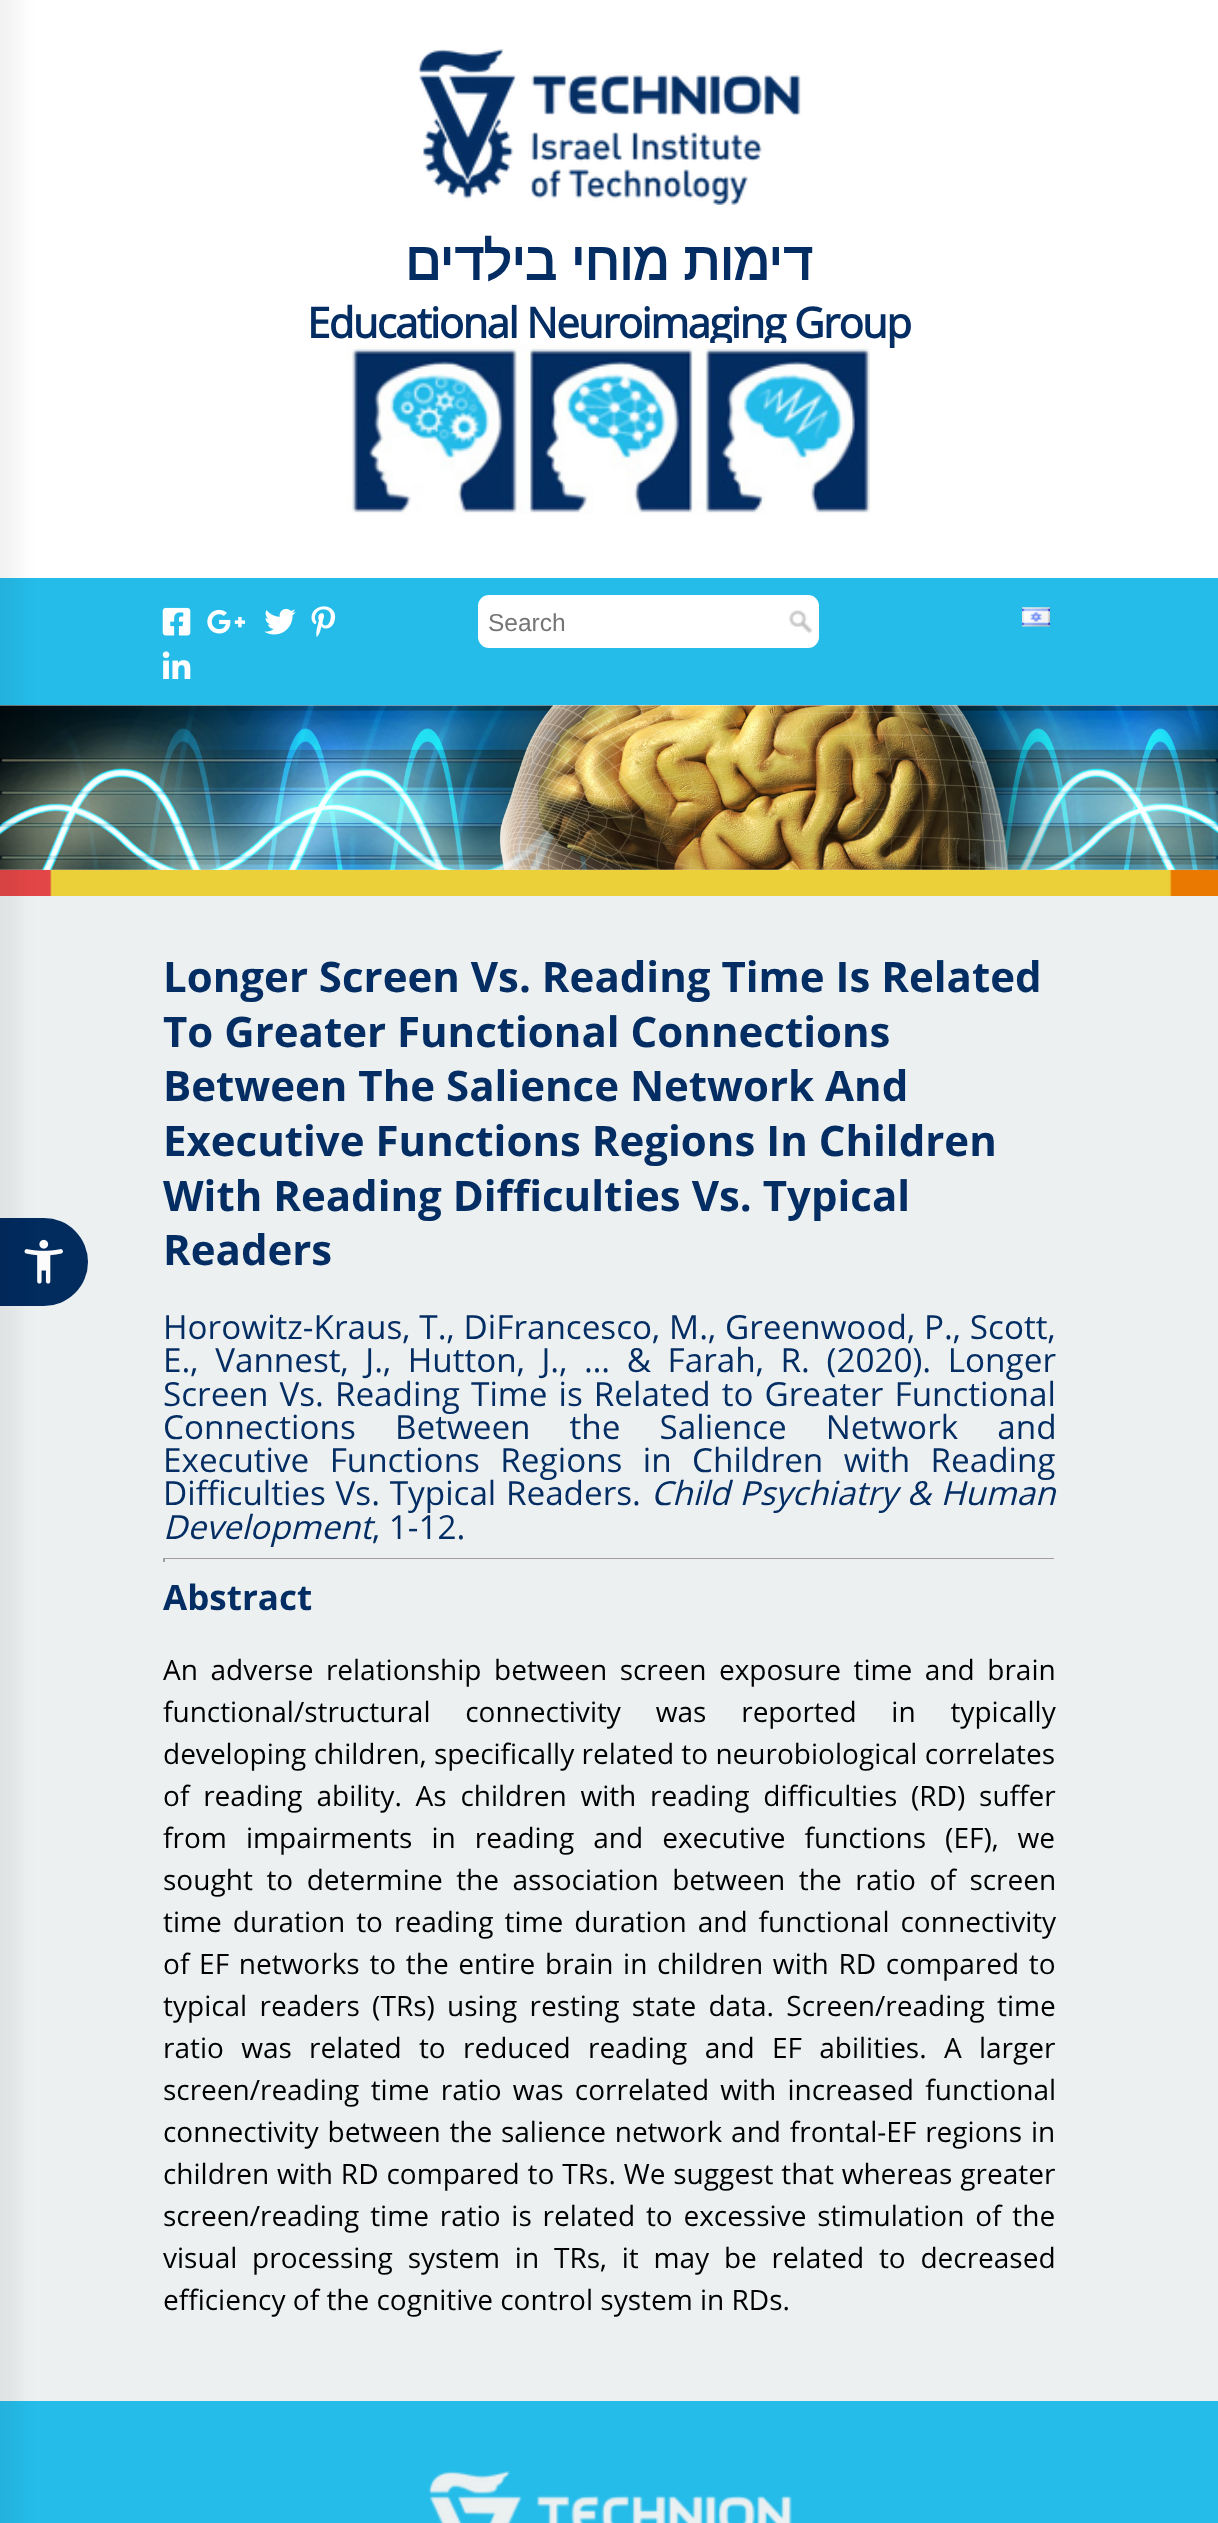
async function draw(canvas) {
  canvas.width = 1218
  canvas.height = 2523
  const ctx = canvas.getContext('2d')
  ctx.miterLimit = 4
  ctx.fontKerning = 'normal'
  async function loadImage(src) {
    const img = new Image()
    img.src = src
    await img.decode()
    return img
  }

  ctx.fillStyle = '#fff'
  ctx.fillRect(0, 0, 1218, 2523)
  ctx.fillStyle = '#25bce9'
  ctx.fillRect(0, 578, 1218, 127)
  ctx.drawImage(await loadImage('image10.png'), 0, 869, 1218, 27)
  ctx.drawImage(await loadImage('image9.png'), 0, 705, 1218, 165)
  ctx.fillStyle = '#ecf0f1'
  ctx.fillRect(0, 896, 1218, 1505)
  ctx.fillStyle = '#022b5e'
  ctx.beginPath()
  ctx.roundRect(0, 1218, 88, 88, [0, 44, 44, 0])
  ctx.fill()
  ctx.drawImage(await loadImage('image11.png'), 24, 1239, 39, 45)
  ctx.fillStyle = '#25bce9'
  ctx.fillRect(0, 2401, 1218, 122)
  ctx.fillStyle = '#0000000d'
  ctx.filter = 'blur(9px)'
  ctx.beginPath()
  ctx.rect(-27, -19, 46, 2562)
  ctx.fill()
  ctx.filter = 'none'
  ctx.drawImage(await loadImage('image0.png'), 418, 49, 383, 156)
  ctx.direction = 'rtl'
  ctx.font = 'bold 52.5px Arimo'
  ctx.fillStyle = '#042e63'
  ctx.fillText('דימות מוחי בילדים', 812, 280)
  ctx.letterSpacing = '-1.7px'
  ctx.direction = 'ltr'
  ctx.font = 'bold 42px "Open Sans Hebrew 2"'
  ctx.fillText('Educational Neuroimaging Group', 307, 338)
  ctx.drawImage(await loadImage('image1.png'), 347, 343, 524, 172)
  ctx.drawImage(await loadImage('image2.png'), 162, 607, 29, 29)
  ctx.drawImage(await loadImage('image3.png'), 207, 609, 39, 25)
  ctx.drawImage(await loadImage('image4.png'), 264, 608, 32, 27)
  ctx.drawImage(await loadImage('image5.png'), 311, 606, 25, 31)
  ctx.drawImage(await loadImage('image6.png'), 162, 651, 29, 28)
  ctx.fillStyle = '#fff'
  ctx.beginPath()
  ctx.roundRect(478, 595, 341, 53, 11)
  ctx.fill()
  ctx.drawImage(await loadImage('image7.png'), 789, 610, 24, 24)
  ctx.letterSpacing = '0px'
  ctx.font = '24.5px Liberation Sans'
  ctx.fillStyle = '#757575'
  ctx.fillText('Search', 488, 631)
  ctx.drawImage(await loadImage('image8.png'), 1022, 607, 28, 20)
  ctx.font = 'bold 42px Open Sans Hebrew'
  ctx.fillStyle = '#042e63'
  ctx.fillText('Longer Screen Vs. Reading Time Is Related', 163, 992)
  ctx.fillText('To Greater Functional Connections', 163, 1047)
  ctx.fillText('Between The Salience Network And', 163, 1101)
  ctx.fillText('Executive Functions Regions In Children', 163, 1156)
  ctx.fillText('With Reading Difficulties Vs. Typical', 163, 1211)
  ctx.fillText('Readers', 163, 1265)
  ctx.wordSpacing = '0.25px'
  ctx.font = '33.25px Open Sans Hebrew'
  ctx.fillText('Horowitz-Kraus, T., DiFrancesco, M., Greenwood, P., Scott,', 163, 1339)
  ctx.wordSpacing = '8px'
  ctx.fillText('E., Vannest, J., Hutton, J., … & Farah, R. (2020). Longer', 163, 1372)
  ctx.wordSpacing = '2.4px'
  ctx.fillText('Screen Vs. Reading Time is Related to Greater Functional', 163, 1406)
  ctx.wordSpacing = '30.5px'
  ctx.fillText('Connections Between the Salience Network and', 163, 1439)
  ctx.wordSpacing = '11.75px'
  ctx.fillText('Executive Functions Regions in Children with Reading', 163, 1472)
  ctx.wordSpacing = '1px'
  ctx.fillText('Difficulties Vs. Typical Readers.', 163, 1505)
  ctx.font = 'italic 33.25px Open Sans Hebrew'
  ctx.fillText('Child Psychiatry & Human', 651, 1505)
  ctx.wordSpacing = '0px'
  ctx.fillText('Development', 163, 1539)
  ctx.font = '33.25px Open Sans Hebrew'
  ctx.fillText(', 1-12.', 372, 1539)
  ctx.fillStyle = '#9f9f9f'
  ctx.fillRect(163, 1558, 892, 1)
  ctx.fillStyle = '#eee'
  ctx.fillRect(1054, 1558, 2, 4)
  ctx.fillRect(163, 1559, 892, 2)
  ctx.fillStyle = '#9f9f9f'
  ctx.fillRect(163, 1558, 2, 4)
  ctx.font = 'bold 35px Open Sans Hebrew'
  ctx.fillStyle = '#042e63'
  ctx.fillText('Abstract', 163, 1610)
  ctx.wordSpacing = '5.25px'
  ctx.font = '28px Open Sans Hebrew'
  ctx.fillStyle = '#000'
  ctx.fillText('An adverse relationship between screen exposure time and brain', 163, 1680)
  ctx.wordSpacing = '27.5px'
  ctx.fillText('functional/structural connectivity was reported in typically', 163, 1722)
  ctx.wordSpacing = '0px'
  ctx.fillText('developing children, specifically related to neurobiological correlates', 163, 1764)
  ctx.wordSpacing = '6.5px'
  ctx.fillText('of reading ability. As children with reading difficulties (RD) suffer', 163, 1806)
  ctx.wordSpacing = '11.75px'
  ctx.fillText('from impairments in reading and executive functions (EF), we', 163, 1848)
  ctx.wordSpacing = '6.25px'
  ctx.fillText('sought to determine the association between the ratio of screen', 163, 1890)
  ctx.wordSpacing = '3.75px'
  ctx.fillText('time duration to reading time duration and functional connectivity', 163, 1932)
  ctx.wordSpacing = '2.4px'
  ctx.fillText('of EF networks to the entire brain in children with RD compared to', 163, 1974)
  ctx.wordSpacing = '5px'
  ctx.fillText('typical readers (TRs) using resting state data. Screen/reading time', 163, 2016)
  ctx.wordSpacing = '10px'
  ctx.fillText('ratio was related to reduced reading and EF abilities. A larger', 163, 2058)
  ctx.wordSpacing = '4px'
  ctx.fillText('screen/reading time ratio was correlated with increased functional', 163, 2100)
  ctx.wordSpacing = '1.5px'
  ctx.fillText('connectivity between the salience network and frontal-EF regions in', 163, 2142)
  ctx.wordSpacing = '0.6px'
  ctx.fillText('children with RD compared to TRs. We suggest that whereas greater', 163, 2184)
  ctx.wordSpacing = '3.5px'
  ctx.fillText('screen/reading time ratio is related to excessive stimulation of the', 163, 2226)
  ctx.wordSpacing = '7.5px'
  ctx.fillText('visual processing system in TRs, it may be related to decreased', 163, 2268)
  ctx.wordSpacing = '0px'
  ctx.fillText('efficiency of the cognitive control system in RDs.', 163, 2310)
  ctx.drawImage(await loadImage('image12.png'), 428, 2471, 364, 52)
}

draw(document.querySelector('canvas'))
